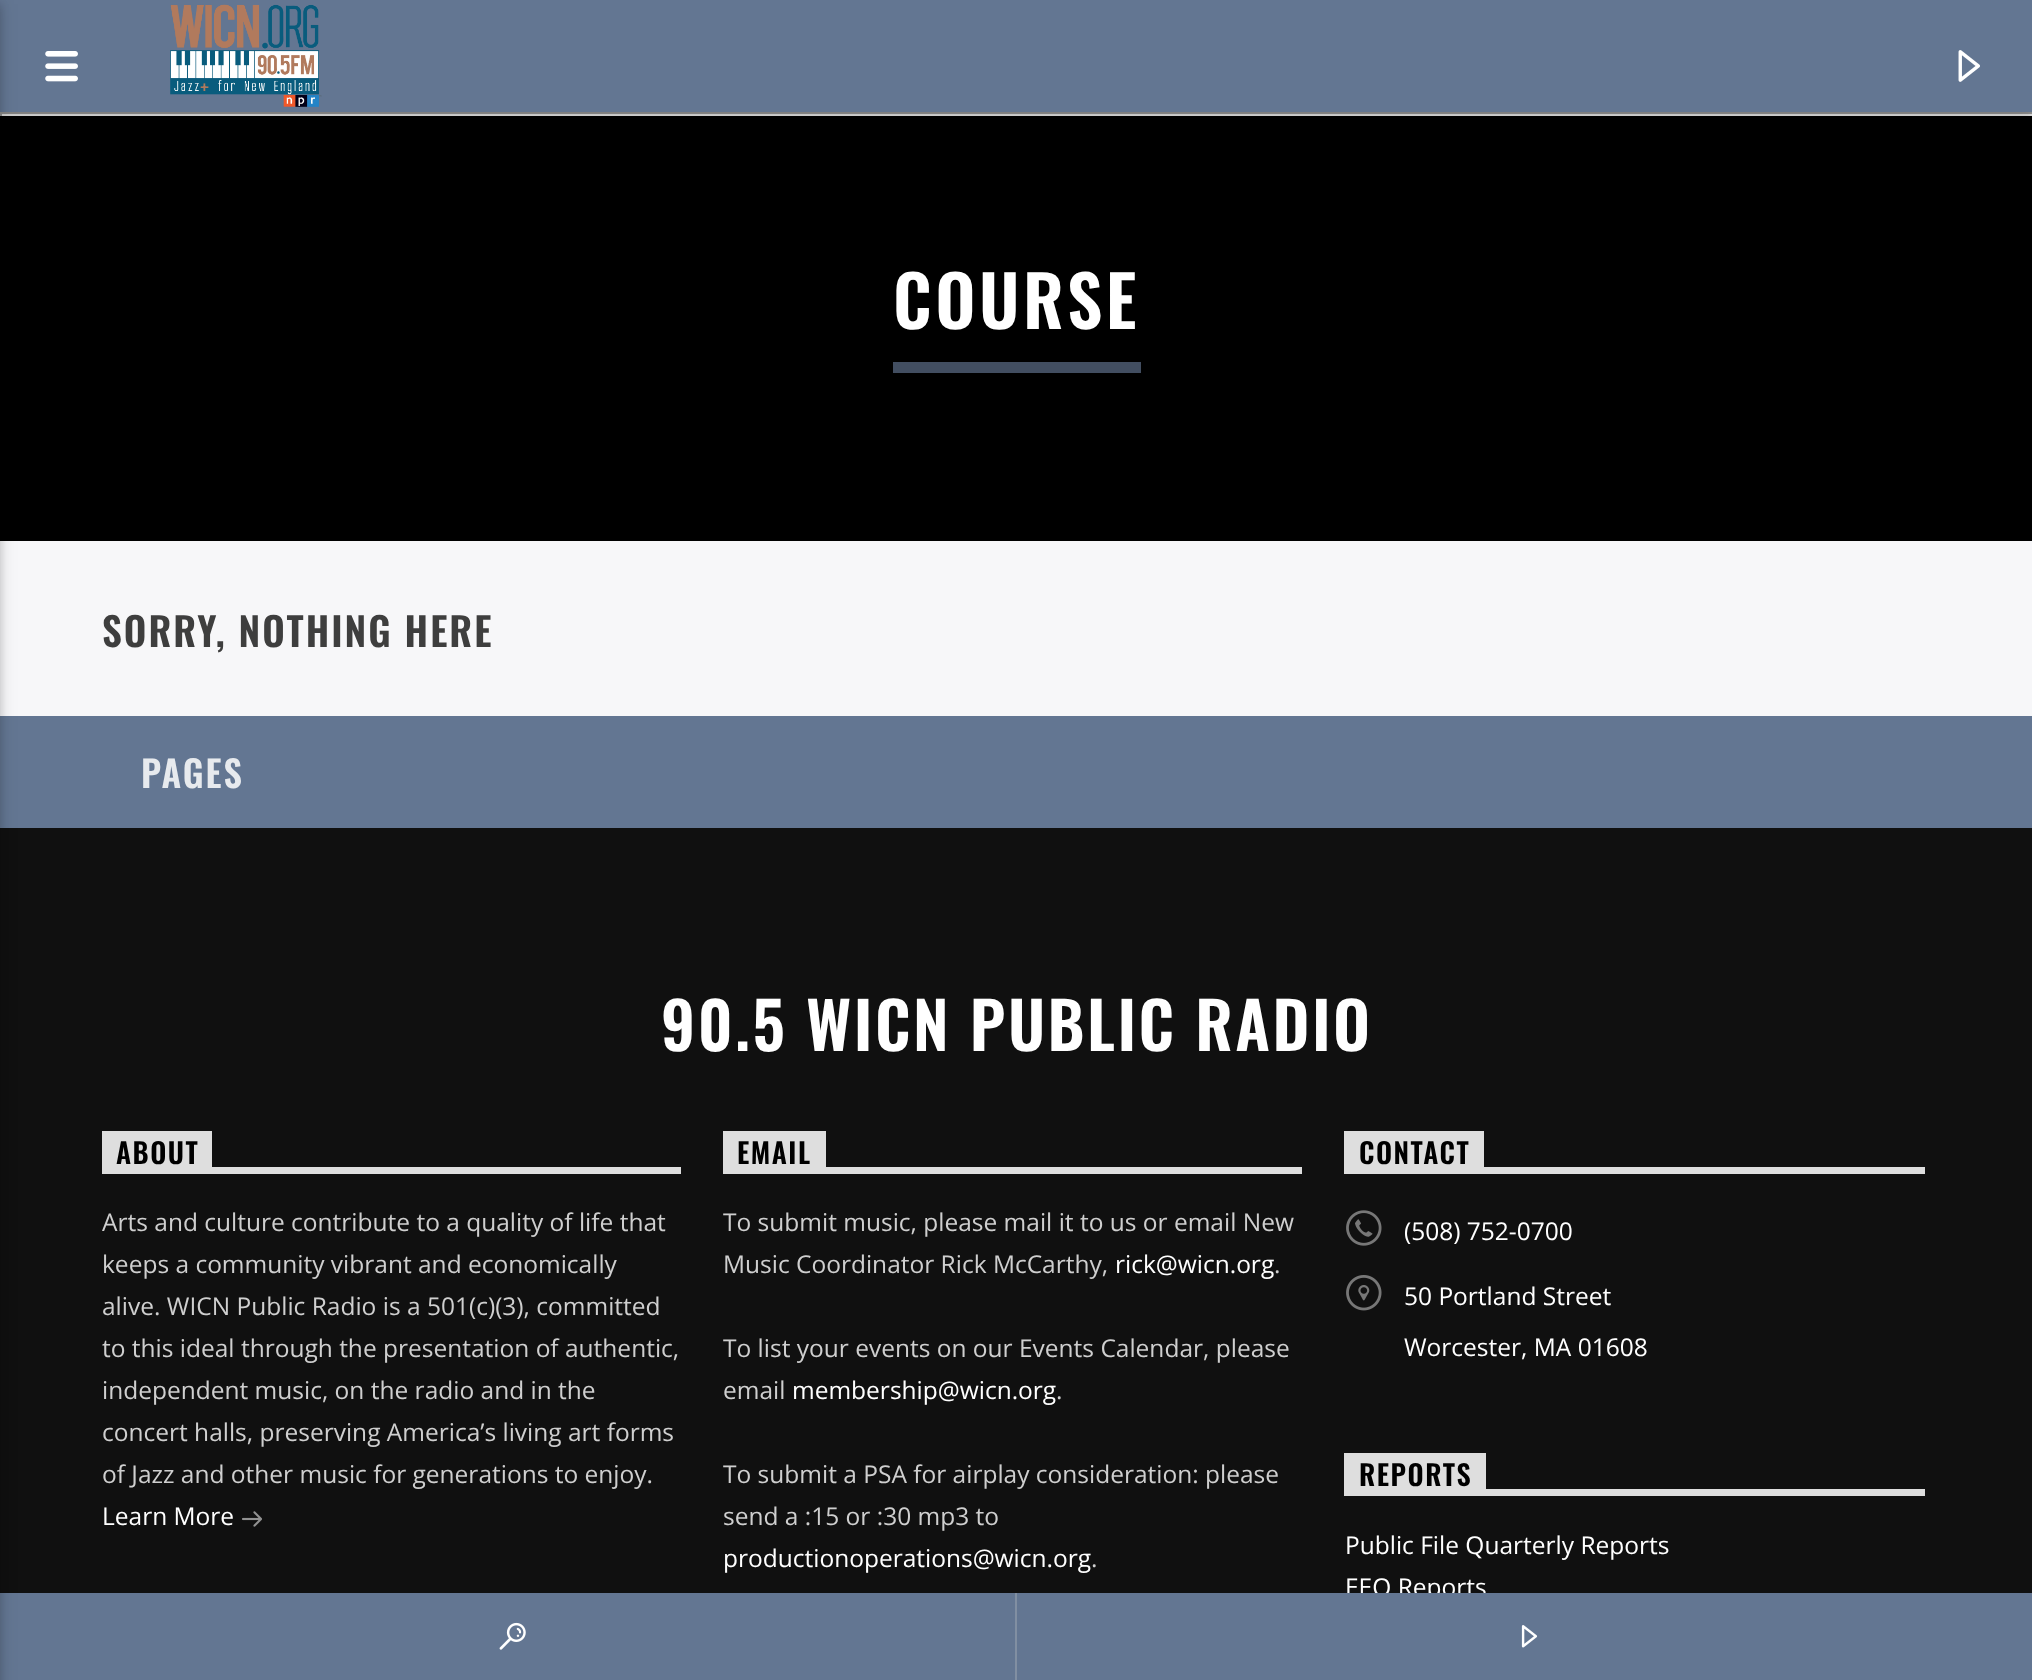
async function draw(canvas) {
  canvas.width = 2032
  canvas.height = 1680
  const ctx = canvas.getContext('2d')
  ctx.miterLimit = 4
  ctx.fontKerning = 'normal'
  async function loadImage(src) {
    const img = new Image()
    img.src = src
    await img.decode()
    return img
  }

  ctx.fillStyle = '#f7f7f9'
  ctx.fillRect(0, 0, 2032, 1680)
  ctx.fillStyle = '#9f9f9f'
  ctx.fillRect(0, 112, 2032, 2)
  ctx.fillStyle = '#eee'
  ctx.fillRect(0, 114, 2032, 2)
  ctx.fillStyle = '#9f9f9f'
  ctx.fillRect(0, 112, 2, 4)
  ctx.fillStyle = '#000'
  ctx.fillRect(0, 116, 2032, 425)
  ctx.fillStyle = '#0000001f'
  ctx.filter = 'blur(9px)'
  ctx.beginPath()
  ctx.rect(0, 4, 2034, 112)
  ctx.fill()
  ctx.filter = 'none'
  ctx.fillStyle = '#00000029'
  ctx.filter = 'blur(4.5px)'
  ctx.beginPath()
  ctx.rect(0, 4, 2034, 112)
  ctx.fill()
  ctx.filter = 'none'
  ctx.fillStyle = '#637692'
  ctx.fillRect(0, 0, 2032, 112)
  ctx.drawImage(await loadImage('image0.png'), 45, 51, 33, 31)
  ctx.drawImage(await loadImage('image1.png'), 170, 4, 152, 103)
  ctx.drawImage(await loadImage('image2.png'), 1958, 50, 22, 32)
  ctx.fillRect(0, 716, 2032, 112)
  ctx.fillStyle = '#101010'
  ctx.fillRect(0, 828, 2032, 765)
  ctx.font = '24.5px Open Sans'
  ctx.fillStyle = '#fff'
  ctx.fillText('EEO Reports', 1345, 1596)
  ctx.fillStyle = '#637692'
  ctx.fillRect(0, 1593, 2032, 87)
  ctx.fillStyle = '#0000001f'
  ctx.filter = 'blur(9px)'
  ctx.beginPath()
  ctx.rect(-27, 4, 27, 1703)
  ctx.fill()
  ctx.filter = 'none'
  ctx.fillStyle = '#00000029'
  ctx.filter = 'blur(4.5px)'
  ctx.beginPath()
  ctx.rect(-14, 4, 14, 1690)
  ctx.fill()
  ctx.filter = 'none'
  ctx.fillStyle = '#424e61'
  ctx.fillRect(893, 362, 248, 11)
  ctx.letterSpacing = '3.5px'
  ctx.font = '600 70px Oswald'
  ctx.fillStyle = '#fff'
  ctx.fillText('COURSE', 893, 329)
  ctx.letterSpacing = '2px'
  ctx.font = '600 39.25px Oswald'
  ctx.fillStyle = '#3e3e3e'
  ctx.fillText('SORRY, NOTHING HERE', 102, 647)
  ctx.font = '600 36.5px Oswald'
  ctx.fillStyle = '#e7eaee'
  ctx.fillText('PAGES', 141, 788)
  ctx.letterSpacing = '2.5px'
  ctx.font = '600 64.4px Oswald'
  ctx.fillStyle = '#fff'
  ctx.fillText('90.5 WICN PUBLIC RADIO', 661, 1051)
  ctx.fillStyle = '#dedede'
  ctx.fillRect(212, 1167, 469, 7)
  ctx.fillRect(102, 1131, 110, 43)
  ctx.letterSpacing = '1.5px'
  ctx.font = '600 28px Oswald'
  ctx.fillStyle = '#000'
  ctx.fillText('ABOUT', 116, 1164)
  ctx.letterSpacing = '0px'
  ctx.font = '24.5px Open Sans'
  ctx.fillStyle = '#cfcfcf'
  ctx.fillText('Arts and culture contribute to a quality of life that', 102, 1231)
  ctx.fillText('keeps a community vibrant and economically', 102, 1273)
  ctx.fillText('alive. WICN Public Radio is a 501(c)(3), committed', 102, 1315)
  ctx.fillText('to this ideal through the presentation of authentic,', 102, 1357)
  ctx.fillText('independent music, on the radio and in the', 102, 1399)
  ctx.fillText('concert halls, preserving America’s living art forms', 102, 1441)
  ctx.fillText('of Jazz and other music for generations to enjoy.', 102, 1483)
  ctx.fillStyle = '#fff'
  ctx.fillText('Learn More', 102, 1525)
  ctx.drawImage(await loadImage('image3.png'), 242, 1511, 20, 16)
  ctx.fillStyle = '#dedede'
  ctx.fillRect(826, 1167, 476, 7)
  ctx.fillRect(723, 1131, 103, 43)
  ctx.letterSpacing = '1.5px'
  ctx.font = '600 28px Oswald'
  ctx.fillStyle = '#000'
  ctx.fillText('EMAIL', 737, 1164)
  ctx.letterSpacing = '0px'
  ctx.font = '24.5px Open Sans'
  ctx.fillStyle = '#cfcfcf'
  ctx.fillText('To submit music, please mail it to us or email New', 723, 1231)
  ctx.fillText('Music Coordinator Rick McCarthy,', 723, 1273)
  ctx.fillStyle = '#fff'
  ctx.fillText('rick@wicn.org', 1115, 1273)
  ctx.fillStyle = '#cfcfcf'
  ctx.fillText('.', 1274, 1273)
  ctx.fillText('To list your events on our Events Calendar, please', 723, 1357)
  ctx.fillText('email', 723, 1399)
  ctx.fillStyle = '#fff'
  ctx.fillText('membership@wicn.org', 792, 1399)
  ctx.fillStyle = '#cfcfcf'
  ctx.fillText('.', 1056, 1399)
  ctx.fillText('To submit a PSA for airplay consideration: please', 723, 1483)
  ctx.fillText('send a :15 or :30 mp3 to', 723, 1525)
  ctx.fillStyle = '#fff'
  ctx.fillText('productionoperations@wicn.org', 723, 1567)
  ctx.fillStyle = '#cfcfcf'
  ctx.fillText('.', 1091, 1567)
  ctx.fillStyle = '#dedede'
  ctx.fillRect(1484, 1167, 441, 7)
  ctx.fillRect(1344, 1131, 140, 43)
  ctx.letterSpacing = '1.5px'
  ctx.font = '600 28px Oswald'
  ctx.fillStyle = '#000'
  ctx.fillText('CONTACT', 1359, 1164)
  ctx.drawImage(await loadImage('image4.png'), 1346, 1210, 36, 36)
  ctx.letterSpacing = '0px'
  ctx.font = '24.5px Open Sans'
  ctx.fillStyle = '#fff'
  ctx.fillText('(508) 752-0700', 1404, 1240)
  ctx.drawImage(await loadImage('image5.png'), 1346, 1275, 36, 36)
  ctx.fillText('50 Portland Street', 1404, 1305)
  ctx.fillText('Worcester, MA 01608', 1404, 1356)
  ctx.fillStyle = '#dedede'
  ctx.fillRect(1486, 1489, 439, 7)
  ctx.fillRect(1344, 1453, 142, 43)
  ctx.letterSpacing = '1.5px'
  ctx.font = '600 28px Oswald'
  ctx.fillStyle = '#000'
  ctx.fillText('REPORTS', 1359, 1486)
  ctx.letterSpacing = '0px'
  ctx.font = '24.5px Open Sans'
  ctx.fillStyle = '#fff'
  ctx.fillText('Public File Quarterly Reports', 1345, 1554)
  ctx.fillStyle = '#818fa2'
  ctx.fillRect(1015, 1593, 2, 87)
  ctx.drawImage(await loadImage('image6.png'), 499, 1622, 27, 28)
  ctx.drawImage(await loadImage('image7.png'), 1521, 1625, 17, 23)
}

draw(document.querySelector('canvas'))
